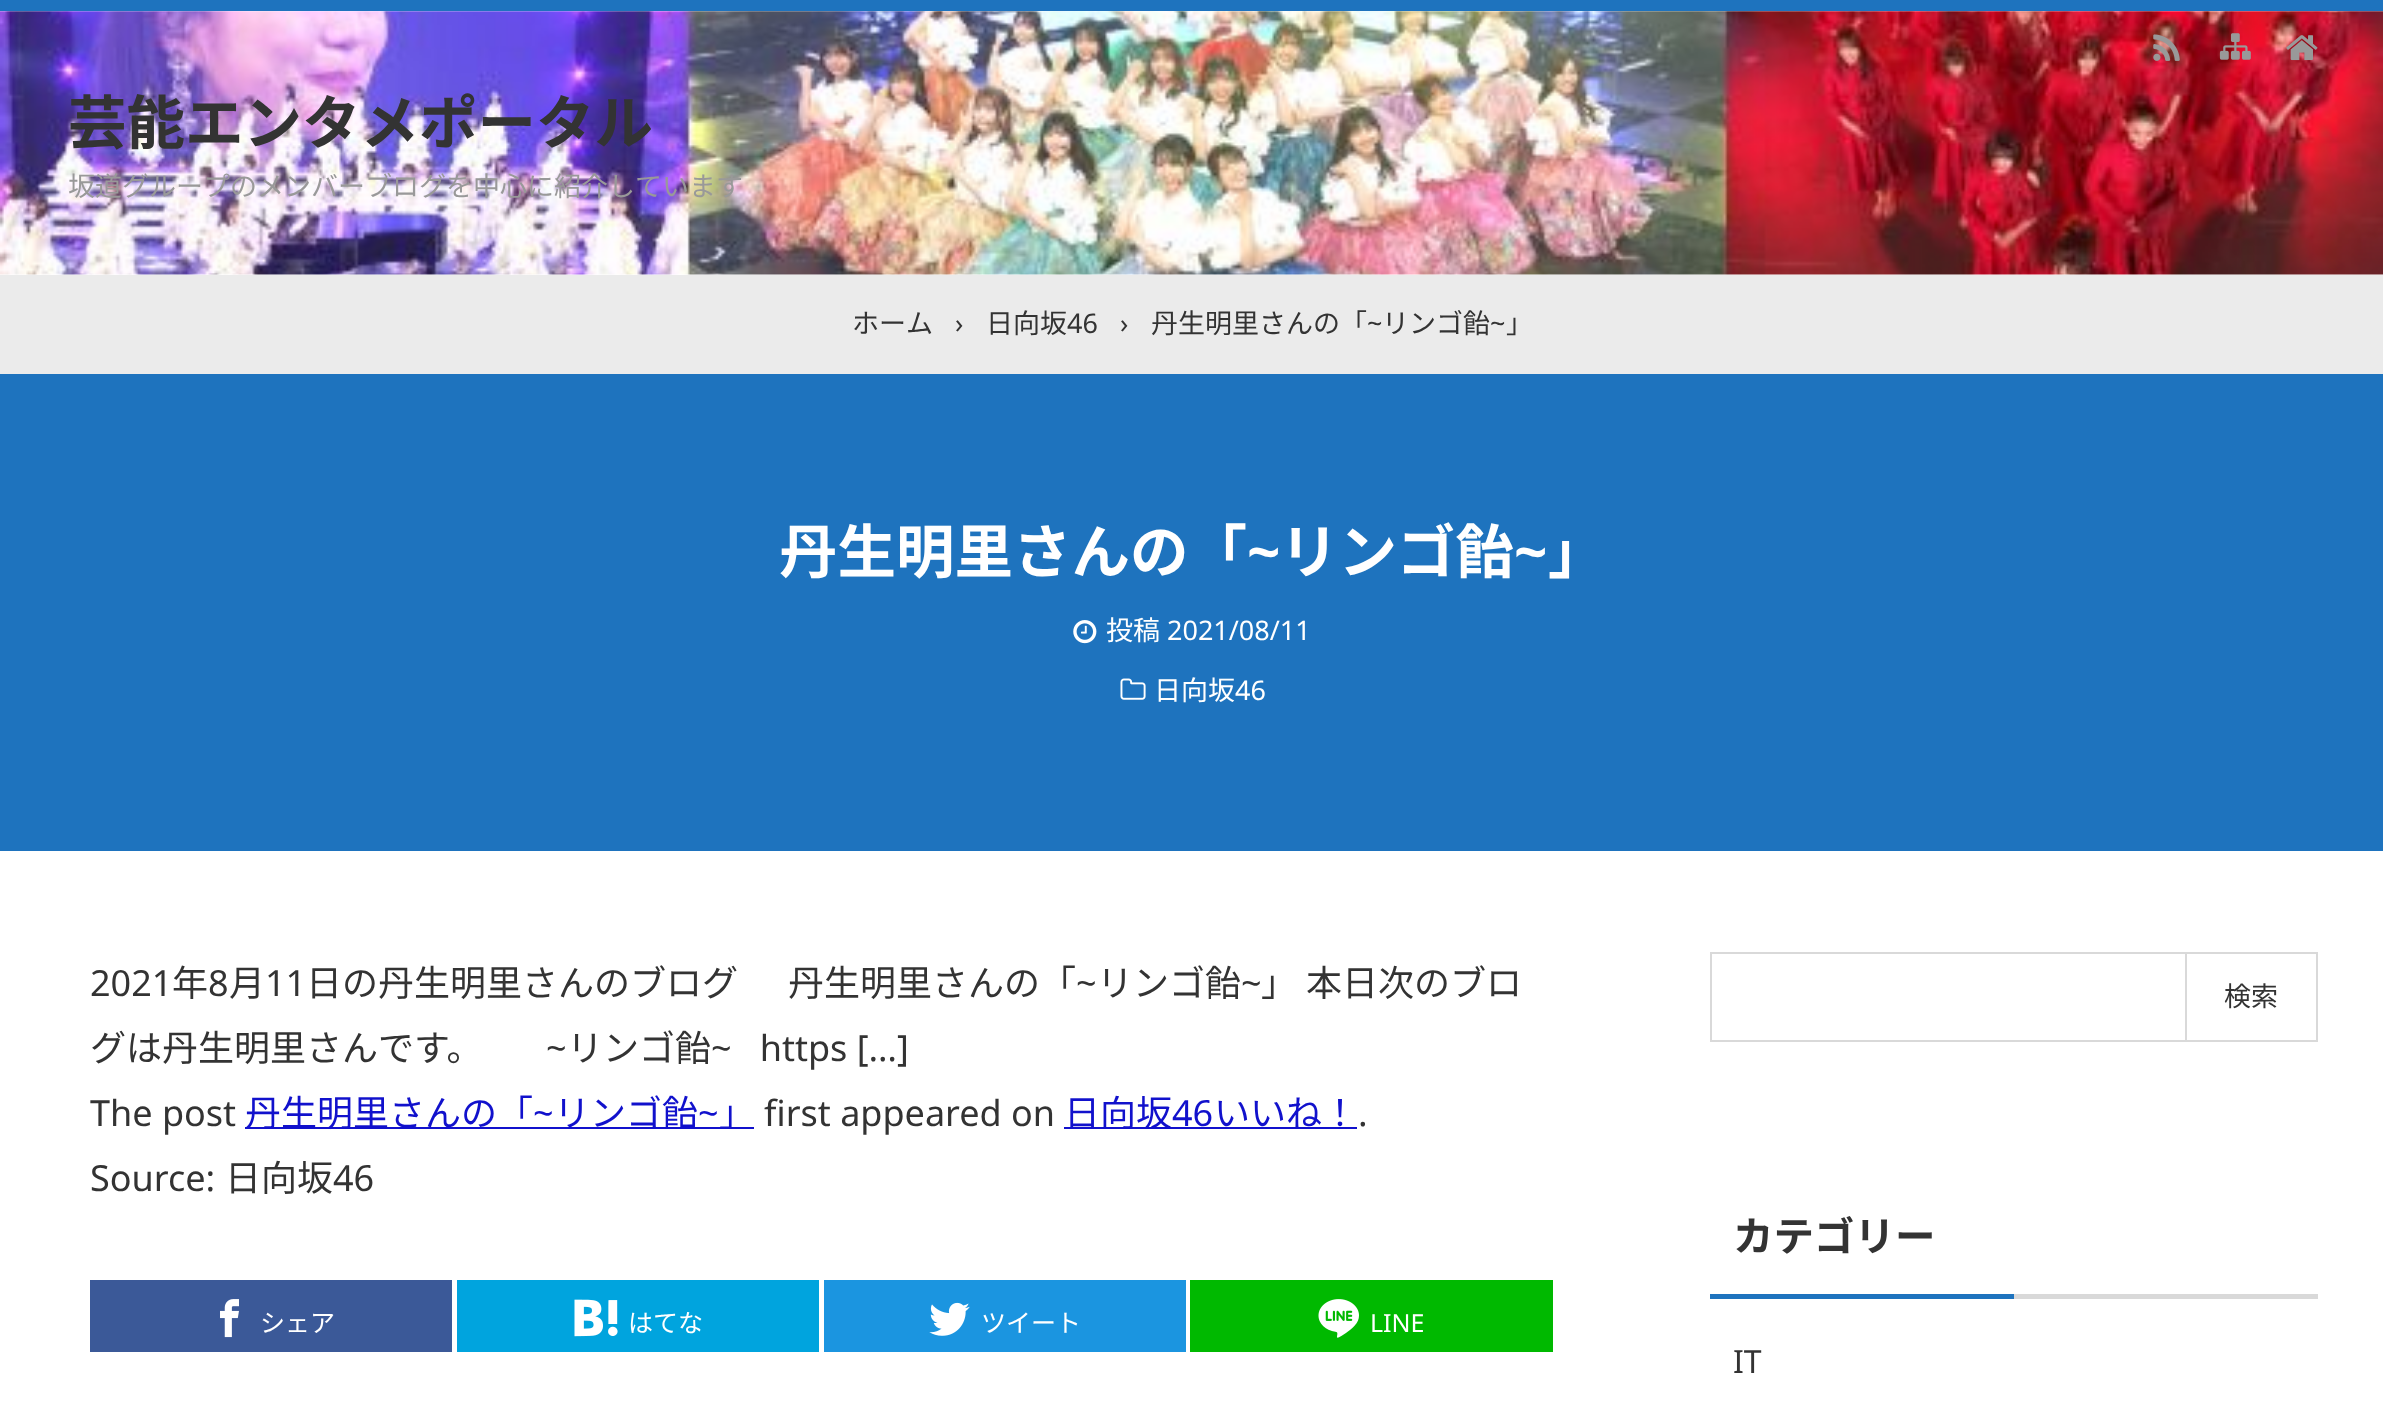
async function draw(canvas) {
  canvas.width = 2383
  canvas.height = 1408
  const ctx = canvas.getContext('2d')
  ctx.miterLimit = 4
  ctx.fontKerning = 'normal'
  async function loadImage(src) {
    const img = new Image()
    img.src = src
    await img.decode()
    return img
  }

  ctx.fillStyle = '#fff'
  ctx.fillRect(0, 0, 2383, 1408)
  ctx.fillStyle = '#1e73be'
  ctx.fillRect(0, 0, 2383, 11)
  ctx.drawImage(await loadImage('image3.png'), 0, 11, 2383, 264)
  ctx.drawImage(await loadImage('image0.png'), 2153, 34, 27, 27)
  ctx.drawImage(await loadImage('image1.png'), 2219, 33, 32, 27)
  ctx.drawImage(await loadImage('image2.png'), 2286, 35, 32, 26)
  ctx.font = 'bold 58.5px Noto Sans CJK JP'
  ctx.fillStyle = '#333'
  ctx.fillText('芸能エンタメポータル', 68, 144)
  ctx.font = '27px Noto Sans CJK JP'
  ctx.fillStyle = '#999'
  ctx.fillText('坂道グループのメンバーブログを中心に紹介しています', 68, 196)
  ctx.fillStyle = '#ebebeb'
  ctx.fillRect(0, 275, 2383, 99)
  ctx.fillStyle = '#333'
  ctx.fillText('ホーム', 852, 333)
  ctx.font = '27px Noto Sans'
  ctx.fillText('›', 955, 333)
  ctx.font = '27px Noto Sans CJK JP'
  ctx.fillText('日向坂', 986, 333)
  ctx.font = '27px Noto Sans'
  ctx.fillText('46', 1067, 333)
  ctx.fillText('›', 1120, 333)
  ctx.font = '27px Noto Sans CJK JP'
  ctx.fillText('丹生明里さんの「', 1151, 333)
  ctx.font = '27px Noto Sans'
  ctx.fillText('~', 1367, 333)
  ctx.font = '27px Noto Sans CJK JP'
  ctx.fillText('リンゴ飴', 1382, 333)
  ctx.font = '27px Noto Sans'
  ctx.fillText('~', 1490, 333)
  ctx.font = '27px Noto Sans CJK JP'
  ctx.fillText('」', 1506, 333)
  ctx.fillStyle = '#1e73be'
  ctx.fillRect(0, 374, 2383, 477)
  ctx.font = 'bold 58.5px Noto Sans CJK JP'
  ctx.fillStyle = '#fff'
  ctx.fillText('丹生明里さんの「', 779, 573)
  ctx.font = 'bold 58.5px Noto Sans'
  ctx.fillText('~', 1247, 573)
  ctx.font = 'bold 58.5px Noto Sans CJK JP'
  ctx.fillText('リンゴ飴', 1280, 573)
  ctx.font = 'bold 58.5px Noto Sans'
  ctx.fillText('~', 1514, 573)
  ctx.font = 'bold 58.5px Noto Sans CJK JP'
  ctx.fillText('」', 1548, 573)
  ctx.drawImage(await loadImage('image4.png'), 1073, 620, 24, 24)
  ctx.font = '27px Noto Sans CJK JP'
  ctx.fillText('投稿', 1106, 640)
  ctx.font = '27px Noto Sans'
  ctx.fillText('2021/08/11', 1167, 640)
  ctx.drawImage(await loadImage('image5.png'), 1120, 678, 26, 22)
  ctx.font = '27px Noto Sans CJK JP'
  ctx.fillText('日向坂', 1154, 700)
  ctx.font = '27px Noto Sans'
  ctx.fillText('46', 1235, 700)
  ctx.font = '36px Noto Sans'
  ctx.fillStyle = '#333'
  ctx.fillText('2021', 90, 996)
  ctx.font = '36px Noto Sans CJK JP'
  ctx.fillText('年', 172, 996)
  ctx.font = '36px Noto Sans'
  ctx.fillText('8', 208, 996)
  ctx.font = '36px Noto Sans CJK JP'
  ctx.fillText('月', 229, 996)
  ctx.font = '36px Noto Sans'
  ctx.fillText('11', 265, 996)
  ctx.font = '36px Noto Sans CJK JP'
  ctx.fillText('日の丹生明里さんのブログ', 306, 996)
  ctx.fillText('丹生明里さんの「', 788, 996)
  ctx.font = '36px Noto Sans'
  ctx.fillText('~', 1076, 996)
  ctx.font = '36px Noto Sans CJK JP'
  ctx.fillText('リンゴ飴', 1097, 996)
  ctx.font = '36px Noto Sans'
  ctx.fillText('~', 1241, 996)
  ctx.wordSpacing = '1px'
  ctx.font = '36px Noto Sans CJK JP'
  ctx.fillText('」 本日次のブロ', 1261, 996)
  ctx.wordSpacing = '0px'
  ctx.fillText('グは丹生明里さんです。', 90, 1061)
  ctx.font = '36px Noto Sans'
  ctx.fillText('~', 546, 1061)
  ctx.font = '36px Noto Sans CJK JP'
  ctx.fillText('リンゴ飴', 567, 1061)
  ctx.font = '36px Noto Sans'
  ctx.fillText('~   https […]', 711, 1061)
  ctx.fillText('The post', 90, 1126)
  ctx.fillStyle = '#11c'
  ctx.fillRect(245, 1127, 509, 2)
  ctx.font = '36px Noto Sans CJK JP'
  ctx.fillText('丹生明里さんの「', 245, 1126)
  ctx.font = '36px Noto Sans'
  ctx.fillText('~', 533, 1126)
  ctx.font = '36px Noto Sans CJK JP'
  ctx.fillText('リンゴ飴', 554, 1126)
  ctx.font = '36px Noto Sans'
  ctx.fillText('~', 698, 1126)
  ctx.font = '36px Noto Sans CJK JP'
  ctx.fillText('」', 719, 1126)
  ctx.font = '36px Noto Sans'
  ctx.fillStyle = '#333'
  ctx.fillText('first appeared on', 764, 1126)
  ctx.fillStyle = '#11c'
  ctx.fillRect(1064, 1127, 293, 2)
  ctx.font = '36px Noto Sans CJK JP'
  ctx.fillText('日向坂', 1064, 1126)
  ctx.font = '36px Noto Sans'
  ctx.fillText('46', 1172, 1126)
  ctx.font = '36px Noto Sans CJK JP'
  ctx.fillText('いいね！', 1214, 1126)
  ctx.font = '36px Noto Sans'
  ctx.fillStyle = '#333'
  ctx.fillText('.', 1358, 1126)
  ctx.fillText('Source:', 90, 1191)
  ctx.font = '36px Noto Sans CJK JP'
  ctx.fillText('日向坂', 225, 1191)
  ctx.font = '36px Noto Sans'
  ctx.fillText('46', 333, 1191)
  ctx.fillStyle = '#3b5998'
  ctx.fillRect(90, 1280, 362, 72)
  ctx.drawImage(await loadImage('image6.png'), 220, 1299, 19, 39)
  ctx.font = '25px Noto Sans CJK JP'
  ctx.fillStyle = '#fff'
  ctx.fillText('シェア', 260, 1332)
  ctx.fillStyle = '#00a4de'
  ctx.fillRect(457, 1280, 362, 72)
  ctx.drawImage(await loadImage('image7.png'), 574, 1299, 44, 38)
  ctx.fillStyle = '#fff'
  ctx.fillText('はてな', 628, 1332)
  ctx.fillStyle = '#1b95e0'
  ctx.fillRect(824, 1280, 362, 72)
  ctx.drawImage(await loadImage('image8.png'), 929, 1302, 41, 34)
  ctx.fillStyle = '#fff'
  ctx.fillText('ツイート', 981, 1332)
  ctx.fillStyle = '#00b900'
  ctx.fillRect(1190, 1280, 363, 72)
  ctx.drawImage(await loadImage('image9.png'), 1318, 1299, 41, 39)
  ctx.font = '25px Noto Sans'
  ctx.fillStyle = '#fff'
  ctx.fillText('LINE', 1370, 1332)
  ctx.fillStyle = '#d9d9d9'
  ctx.fillRect(1710, 952, 475, 2)
  ctx.fillRect(1710, 1040, 475, 2)
  ctx.fillRect(1710, 952, 2, 90)
  ctx.strokeStyle = '#d9d9d9'
  ctx.lineWidth = 2
  ctx.strokeRect(2186, 953, 131, 88)
  ctx.font = '27px Noto Sans CJK JP'
  ctx.fillStyle = '#333'
  ctx.fillText('検索', 2224, 1006)
  ctx.fillStyle = '#d9d9d9'
  ctx.fillRect(2014, 1294, 304, 5)
  ctx.font = 'bold 40.5px Noto Sans CJK JP'
  ctx.fillStyle = '#333'
  ctx.fillText('カテゴリー', 1733, 1251)
  ctx.fillStyle = '#1e73be'
  ctx.fillRect(1710, 1294, 304, 5)
  ctx.font = '32px Noto Sans'
  ctx.fillStyle = '#333'
  ctx.fillText('IT', 1733, 1373)
}

draw(document.querySelector('canvas'))
